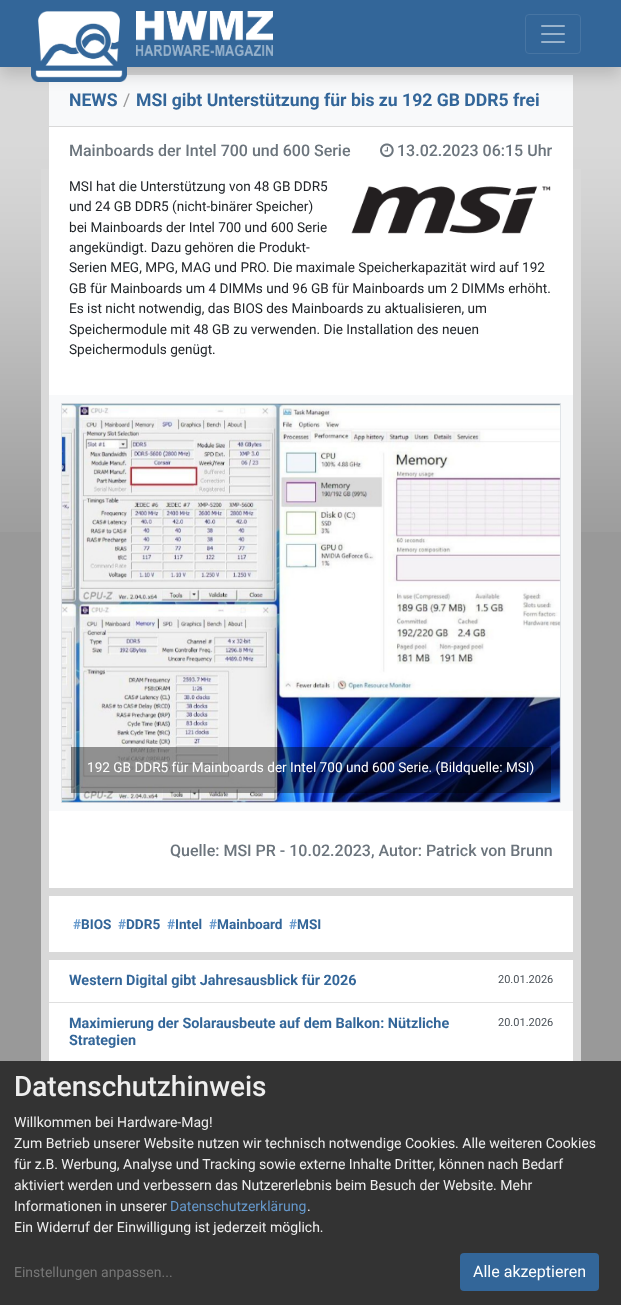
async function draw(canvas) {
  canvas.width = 621
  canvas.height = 1305
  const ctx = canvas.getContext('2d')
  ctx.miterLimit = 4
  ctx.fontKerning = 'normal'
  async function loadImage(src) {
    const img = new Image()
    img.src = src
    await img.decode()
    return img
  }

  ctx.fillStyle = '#999'
  ctx.fillRect(0, 0, 621, 1305)
  ctx.drawImage(await loadImage('image0.png'), 0, 67, 621, 465)
  ctx.fillStyle = '#f8f9fa'
  ctx.fillRect(49, 75, 524, 51)
  ctx.fillStyle = '#00000026'
  ctx.filter = 'blur(8px)'
  ctx.beginPath()
  ctx.rect(0, 8, 621, 67)
  ctx.fill()
  ctx.filter = 'none'
  ctx.fillStyle = '#369'
  ctx.fillRect(0, 0, 621, 67)
  ctx.drawImage(await loadImage('image1.png'), 31, 11, 96, 71)
  ctx.drawImage(await loadImage('image2.png'), 136, 11, 137, 45)
  ctx.beginPath()
  ctx.roundRect(525.5, 14.5, 55, 39, 3.5)
  ctx.strokeStyle = '#4775a3'
  ctx.stroke()
  ctx.drawImage(await loadImage('image3.png'), 541, 25, 24, 18)
  ctx.fillStyle = '#d9d9d9'
  ctx.fillRect(41, 169, 540, 892)
  ctx.font = 'bold 17.6px Roboto'
  ctx.fillStyle = '#369'
  ctx.fillText('NEWS', 69, 106)
  ctx.font = '17.6px Roboto'
  ctx.fillStyle = '#999'
  ctx.fillText('/', 123, 106)
  ctx.font = 'bold 17.6px Roboto'
  ctx.fillStyle = '#369'
  ctx.fillText('MSI gibt Unterstützung für bis zu 192 GB DDR5 frei', 136, 106)
  ctx.fillStyle = '#fff'
  ctx.fillRect(49, 127, 524, 761)
  ctx.font = '500 16px Roboto'
  ctx.fillStyle = '#6c757d'
  ctx.fillText('Mainboards der Intel 700 und 600 Serie', 69, 156)
  ctx.drawImage(await loadImage('image4.png'), 380, 143, 14, 15)
  ctx.fillText('13.02.2023 06:15 Uhr', 397, 156)
  ctx.font = '13.6px Roboto'
  ctx.fillStyle = '#212529'
  ctx.fillText('MSI hat die Unterstützung von 48 GB DDR5', 69, 191)
  ctx.fillText('und 24 GB DDR5 (nicht-binärer Speicher)', 69, 211)
  ctx.fillText('bei Mainboards der Intel 700 und 600 Serie', 69, 232)
  ctx.fillText('angekündigt. Dazu gehören die Produkt-', 69, 252)
  ctx.fillText('Serien MEG, MPG, MAG und PRO. Die maximale Speicherkapazität wird auf 192', 69, 272)
  ctx.fillText('GB für Mainboards um 4 DIMMs und 96 GB für Mainboards um 2 DIMMs erhöht.', 69, 293)
  ctx.fillText('Es ist nicht notwendig, das BIOS des Mainboards zu aktualisieren, um', 69, 313)
  ctx.fillText('Speichermodule mit 48 GB zu verwenden. Die Installation des neuen', 69, 334)
  ctx.fillText('Speichermoduls genügt.', 69, 354)
  ctx.drawImage(await loadImage('image5.png'), 351, 186, 200, 48)
  ctx.fillStyle = '#f8f9fa'
  ctx.fillRect(49, 395, 524, 416)
  ctx.strokeStyle = '#dee2e6'
  ctx.strokeRect(61.5, 403.5, 499, 399)
  ctx.drawImage(await loadImage('image6.png'), 61, 403, 500, 400)
  ctx.fillStyle = '#00000066'
  ctx.fillRect(71, 747, 480, 46)
  ctx.fillStyle = '#fff'
  ctx.fillText('192 GB DDR5 für Mainboards der Intel 700 und 600 Serie. (Bildquelle: MSI)', 87, 772)
  ctx.font = '500 16px Roboto'
  ctx.fillStyle = '#6c757d'
  ctx.fillText('Quelle: MSI PR - 10.02.2023, Autor: Patrick von Brunn', 170, 856)
  ctx.fillStyle = '#fff'
  ctx.fillRect(49, 896, 524, 56)
  ctx.font = 'bold 13.6px Roboto'
  ctx.fillStyle = '#69c'
  ctx.fillText('#', 73, 929)
  ctx.fillStyle = '#369'
  ctx.fillText('BIOS', 81, 929)
  ctx.fillStyle = '#69c'
  ctx.fillText('#', 118, 929)
  ctx.fillStyle = '#369'
  ctx.fillText('DDR5', 126, 929)
  ctx.fillStyle = '#69c'
  ctx.fillText('#', 167, 929)
  ctx.fillStyle = '#369'
  ctx.fillText('Intel', 175, 929)
  ctx.fillStyle = '#69c'
  ctx.fillText('#', 209, 929)
  ctx.fillStyle = '#369'
  ctx.fillText('Mainboard', 217, 929)
  ctx.fillStyle = '#69c'
  ctx.fillText('#', 289, 929)
  ctx.fillStyle = '#369'
  ctx.fillText('MSI', 297, 929)
  ctx.fillStyle = '#fff'
  ctx.fillRect(49, 960, 524, 42)
  ctx.fillStyle = '#dfdfdf'
  ctx.fillRect(49, 1002, 524, 1)
  ctx.font = 'bold 14.4px Roboto'
  ctx.fillStyle = '#369'
  ctx.fillText('Western Digital gibt Jahresausblick für 2026', 69, 985)
  ctx.font = '11px Roboto'
  ctx.fillStyle = '#495057'
  ctx.fillText('20.01.2026', 498, 983)
  ctx.fillStyle = '#fff'
  ctx.fillRect(49, 1003, 524, 58)
  ctx.font = 'bold 14.4px Roboto'
  ctx.fillStyle = '#369'
  ctx.fillText('Maximierung der Solarausbeute auf dem Balkon: Nützliche', 69, 1028)
  ctx.fillText('Strategien', 69, 1045)
  ctx.font = '11px Roboto'
  ctx.fillStyle = '#495057'
  ctx.fillText('20.01.2026', 498, 1026)
  ctx.fillStyle = '#333'
  ctx.fillRect(0, 1061, 621, 244)
  ctx.font = '500 28px Roboto'
  ctx.fillStyle = '#eee'
  ctx.fillText('Datenschutzhinweis', 14, 1096)
  ctx.font = '14px Roboto'
  ctx.fillText('Willkommen bei Hardware-Mag!', 14, 1127)
  ctx.fillText('Zum Betrieb unserer Website nutzen wir technisch notwendige Cookies. Alle weiteren Cookies', 14, 1148)
  ctx.fillText('für z.B. Werbung, Analyse und Tracking sowie externe Inhalte Dritter, können nach Bedarf', 14, 1169)
  ctx.fillText('aktiviert werden und verbessern das Nutzererlebnis beim Besuch der Website. Mehr', 14, 1190)
  ctx.fillText('Informationen in unserer', 14, 1211)
  ctx.fillStyle = '#69c'
  ctx.fillText('Datenschutzerklärung', 170, 1211)
  ctx.fillStyle = '#eee'
  ctx.fillText('.', 307, 1211)
  ctx.fillText('Ein Widerruf der Einwilligung ist jederzeit möglich.', 14, 1232)
  ctx.fillStyle = '#777'
  ctx.fillText('Einstellungen anpassen...', 14, 1277)
  ctx.fillStyle = '#369'
  ctx.beginPath()
  ctx.roundRect(460, 1253, 139, 38, 4)
  ctx.fill()
  ctx.font = '16px Roboto'
  ctx.fillStyle = '#fff'
  ctx.fillText('Alle akzeptieren', 473, 1277)
}

draw(document.querySelector('canvas'))
